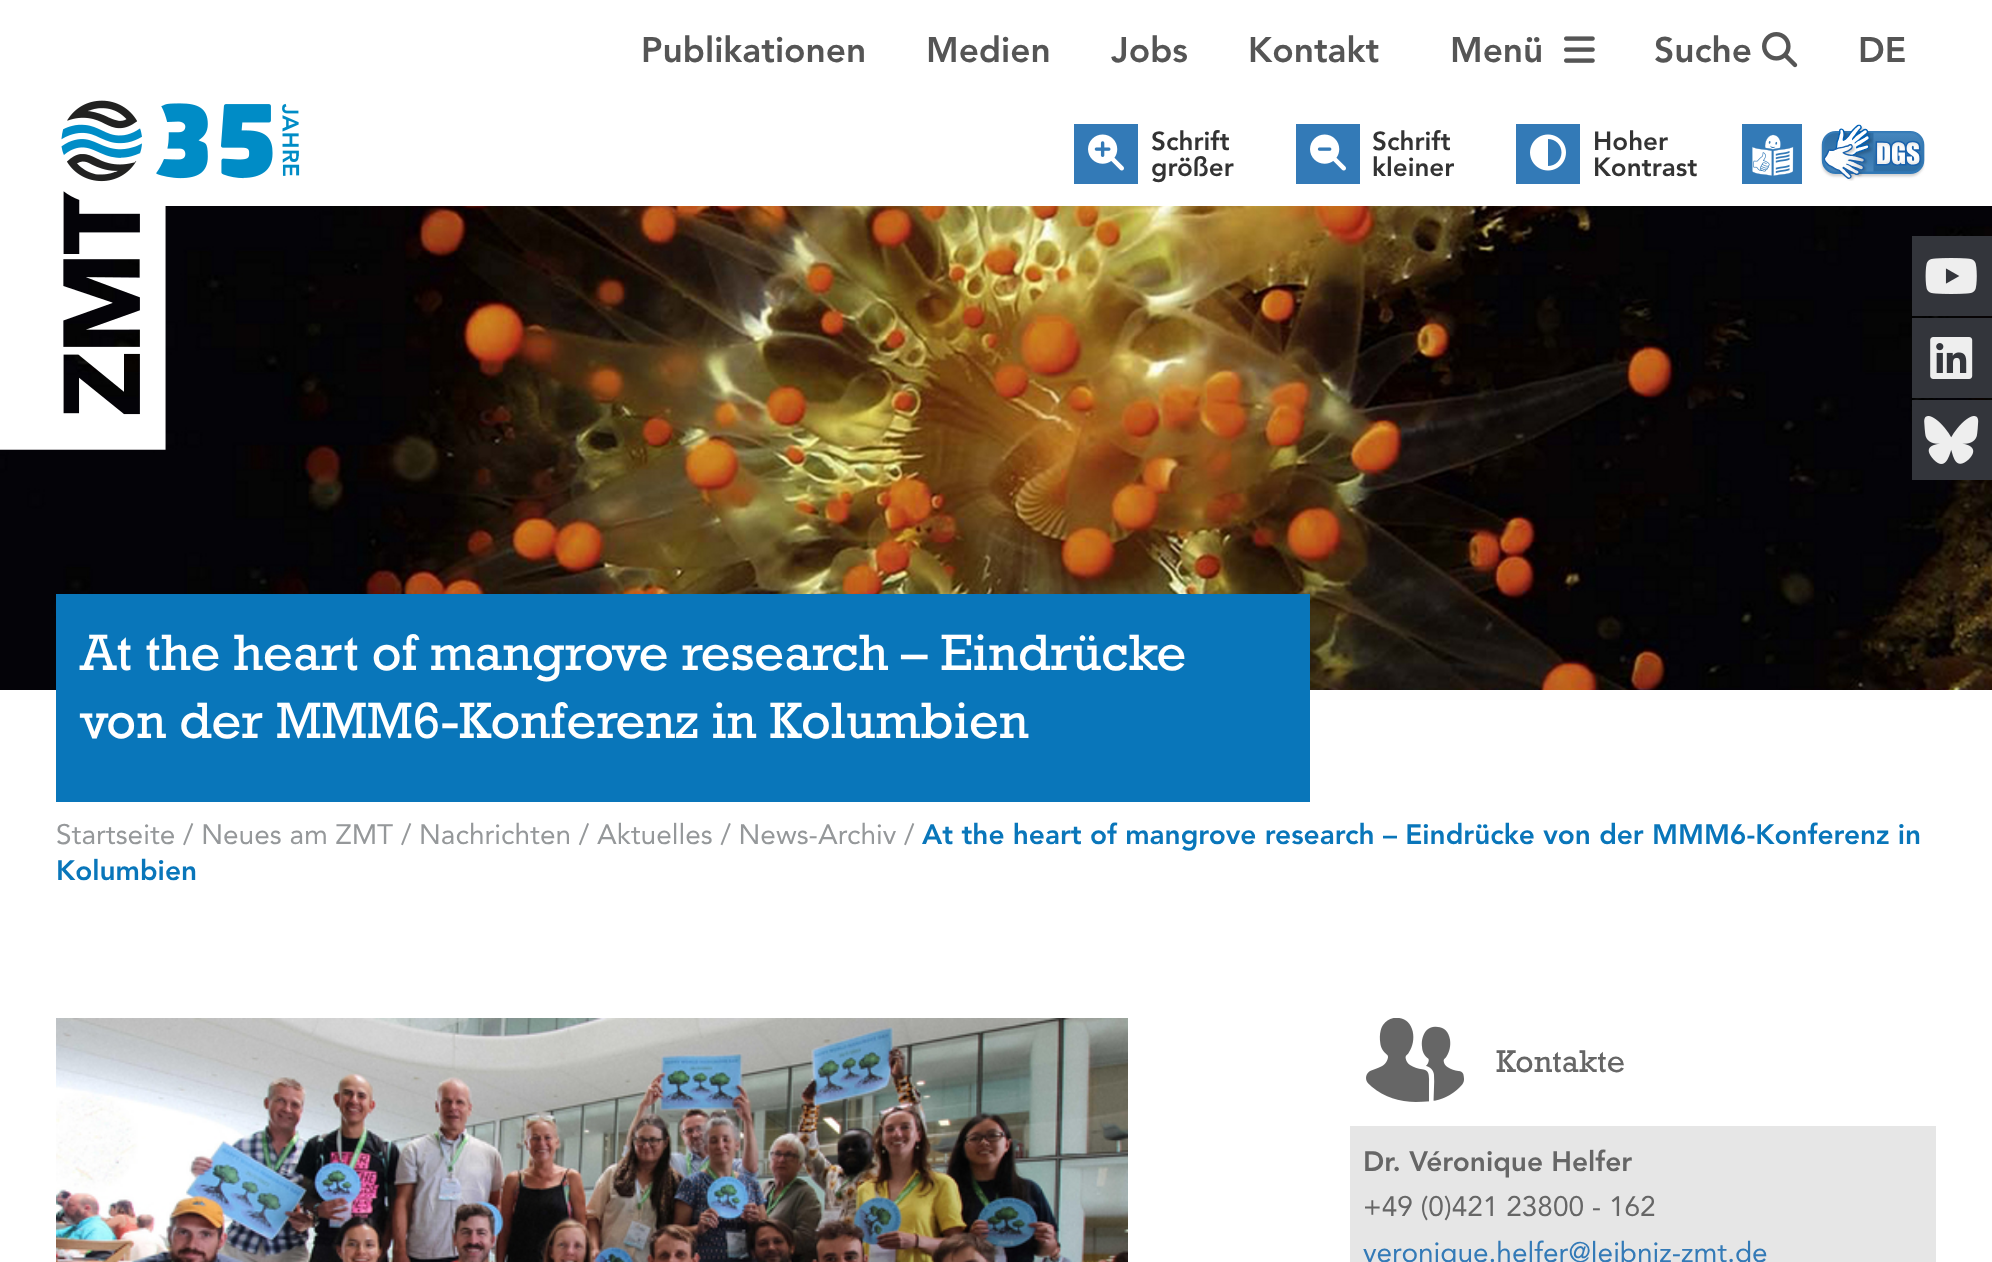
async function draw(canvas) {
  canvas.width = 1992
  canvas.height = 1262
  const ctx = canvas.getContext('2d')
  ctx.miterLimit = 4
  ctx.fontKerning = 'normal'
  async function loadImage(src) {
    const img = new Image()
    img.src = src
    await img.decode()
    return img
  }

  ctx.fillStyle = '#fff'
  ctx.fillRect(0, 0, 1992, 1262)
  ctx.drawImage(await loadImage('image8.png'), 0, 191, 1992, 499)
  ctx.fillRect(165, 191, 1827, 15)
  ctx.drawImage(await loadImage('image0.png'), 0, 100, 300, 350)
  ctx.font = '900 35.25px Avenir'
  ctx.fillStyle = '#555'
  ctx.fillText('Publikationen', 641, 62)
  ctx.fillText('Medien', 926, 62)
  ctx.fillText('Jobs', 1111, 62)
  ctx.fillText('Kontakt', 1248, 62)
  ctx.fillText('Menü', 1450, 62)
  ctx.drawImage(await loadImage('image1.png'), 1564, 36, 31, 27)
  ctx.fillText('Suche', 1654, 62)
  ctx.drawImage(await loadImage('image2.png'), 1762, 32, 36, 36)
  ctx.fillText('DE', 1858, 62)
  ctx.fillStyle = '#337ab7'
  ctx.fillRect(1074, 124, 64, 60)
  ctx.drawImage(await loadImage('image3.png'), 1088, 134, 36, 37)
  ctx.font = '900 26px Avenir'
  ctx.fillStyle = '#333'
  ctx.fillText('Schrift', 1151, 150)
  ctx.fillText('größer', 1151, 176)
  ctx.fillStyle = '#337ab7'
  ctx.fillRect(1296, 124, 64, 60)
  ctx.drawImage(await loadImage('image4.png'), 1310, 134, 36, 37)
  ctx.fillStyle = '#333'
  ctx.fillText('Schrift', 1372, 150)
  ctx.fillText('kleiner', 1372, 176)
  ctx.fillStyle = '#337ab7'
  ctx.fillRect(1516, 124, 64, 60)
  ctx.drawImage(await loadImage('image5.png'), 1530, 134, 36, 37)
  ctx.fillStyle = '#333'
  ctx.fillText('Hoher', 1593, 150)
  ctx.fillText('Kontrast', 1593, 176)
  ctx.drawImage(await loadImage('image6.png'), 1742, 124, 60, 60)
  ctx.drawImage(await loadImage('image7.png'), 1820, 124, 105, 57)
  ctx.fillStyle = '#0976ba'
  ctx.fillRect(56, 594, 1254, 208)
  ctx.font = '52px Rockwell'
  ctx.fillStyle = '#fff'
  ctx.fillText('At the heart of mangrove research – Eindrücke', 80, 670)
  ctx.fillText('von der MMM6-Konferenz in Kolumbien', 80, 738)
  ctx.font = '28px Avenir'
  ctx.fillStyle = '#95989a'
  ctx.fillText('Startseite / Neues am ZMT / Nachrichten / Aktuelles / News-Archiv /', 56, 844)
  ctx.font = '900 28px Avenir'
  ctx.fillStyle = '#0976ba'
  ctx.fillText('At the heart of mangrove research – Eindrücke von der MMM6-Konferenz in', 922, 844)
  ctx.fillText('Kolumbien', 56, 880)
  ctx.drawImage(await loadImage('image9.png'), 56, 1018, 1072, 244)
  ctx.drawImage(await loadImage('image10.png'), 1366, 1018, 98, 84)
  ctx.font = '32px Rockwell'
  ctx.fillStyle = '#666'
  ctx.fillText('Kontakte', 1496, 1072)
  ctx.fillStyle = '#e6e6e6'
  ctx.fillRect(1350, 1126, 586, 136)
  ctx.font = '900 28px Avenir'
  ctx.fillStyle = '#666'
  ctx.fillText('Dr. Véronique Helfer', 1363, 1171)
  ctx.font = '28px Avenir'
  ctx.fillText('+49 (0)421 23800 - 162', 1363, 1216)
  ctx.fillStyle = '#337ab7'
  ctx.fillText('veronique.helfer@leibniz-zmt.de', 1363, 1262)
  ctx.fillStyle = '#33353b'
  ctx.fillRect(1912, 236, 80, 80)
  ctx.drawImage(await loadImage('image11.png'), 1925, 258, 52, 36)
  ctx.fillRect(1912, 318, 80, 80)
  ctx.drawImage(await loadImage('image12.png'), 1930, 337, 43, 42)
  ctx.fillRect(1912, 400, 80, 80)
  ctx.drawImage(await loadImage('image13.png'), 1924, 416, 55, 48)
}

draw(document.querySelector('canvas'))
